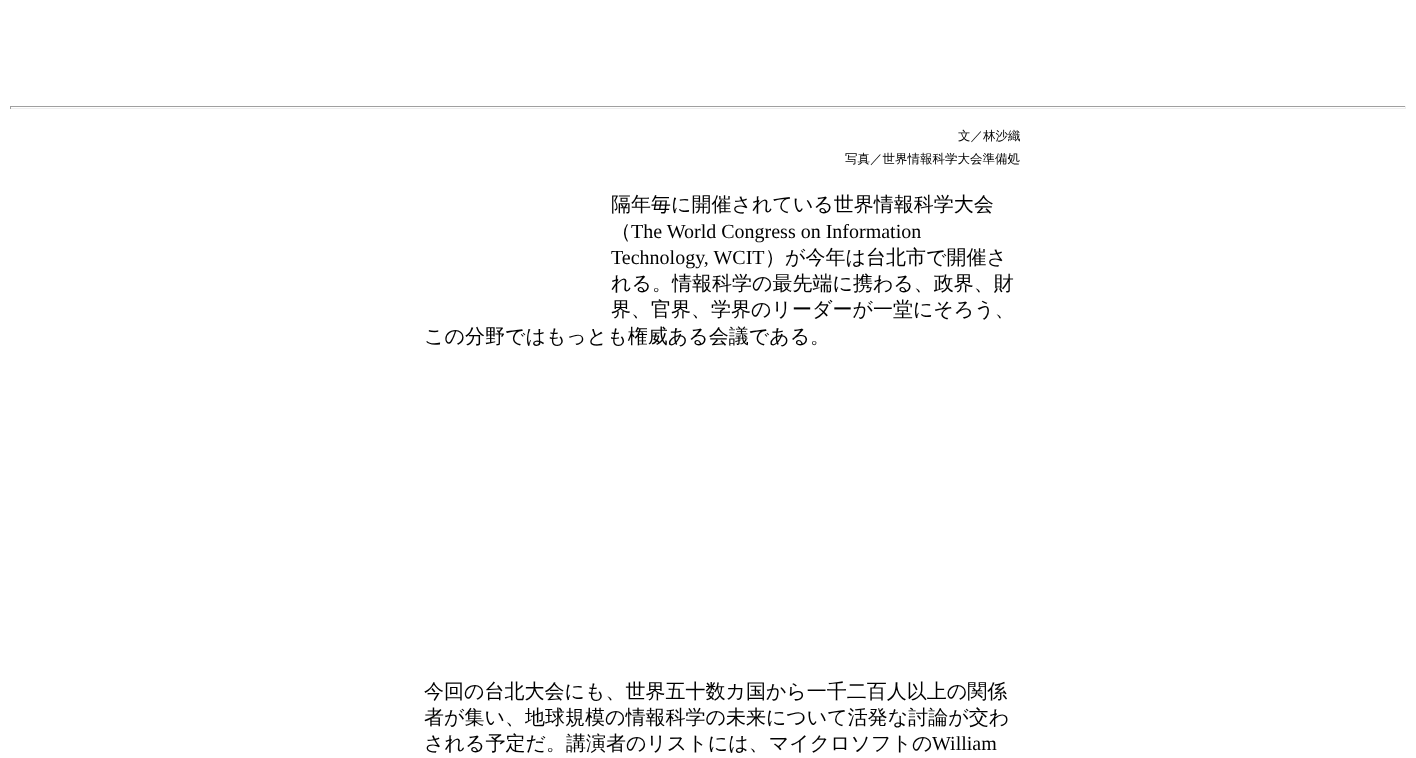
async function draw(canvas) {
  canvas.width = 1416
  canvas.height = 758
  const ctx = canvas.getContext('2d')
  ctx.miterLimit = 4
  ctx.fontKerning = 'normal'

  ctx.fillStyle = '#fff'
  ctx.fillRect(0, 0, 1416, 758)
  ctx.fillStyle = '#9f9f9f'
  ctx.fillRect(10, 106, 1396, 1)
  ctx.fillStyle = '#eee'
  ctx.fillRect(1405, 106, 1, 3)
  ctx.fillRect(10, 108, 1396, 1)
  ctx.fillStyle = '#9f9f9f'
  ctx.fillRect(10, 106, 1, 3)
  ctx.font = '500 12.5px WenQuanYi Zen Hei'
  ctx.fillStyle = '#000'
  ctx.fillText('文／林沙織', 958, 140)
  ctx.fillText('写真／世界情報科学大会準備処', 845, 163)
  ctx.font = '500 20px WenQuanYi Zen Hei'
  ctx.fillText('隔年毎に開催されている世界情報科学大会', 611, 211)
  ctx.fillText('（', 611, 238)
  ctx.font = '20px Liberation Serif'
  ctx.fillText('The World Congress on Information', 631, 238)
  ctx.fillText('Technology, WCIT', 611, 264)
  ctx.font = '500 20px WenQuanYi Zen Hei'
  ctx.fillText('）が今年は台北市で開催さ', 765, 264)
  ctx.fillText('れる。情報科学の最先端に携わる、政界、財', 611, 290)
  ctx.fillText('界、官界、学界のリーダーが一堂にそろう、', 611, 316)
  ctx.fillText('この分野ではもっとも権威ある会議である。', 424, 343)
  ctx.fillText('今回の台北大会にも、世界五十数カ国から一千二百人以上の関係', 424, 698)
  ctx.fillText('者が集い、地球規模の情報科学の未来について活発な討論が交わ', 424, 724)
  ctx.fillText('される予定だ。講演者のリストには、マイクロソフトの', 424, 750)
  ctx.font = '20px Liberation Serif'
  ctx.fillText('William', 932, 750)
}

draw(document.querySelector('canvas'))
